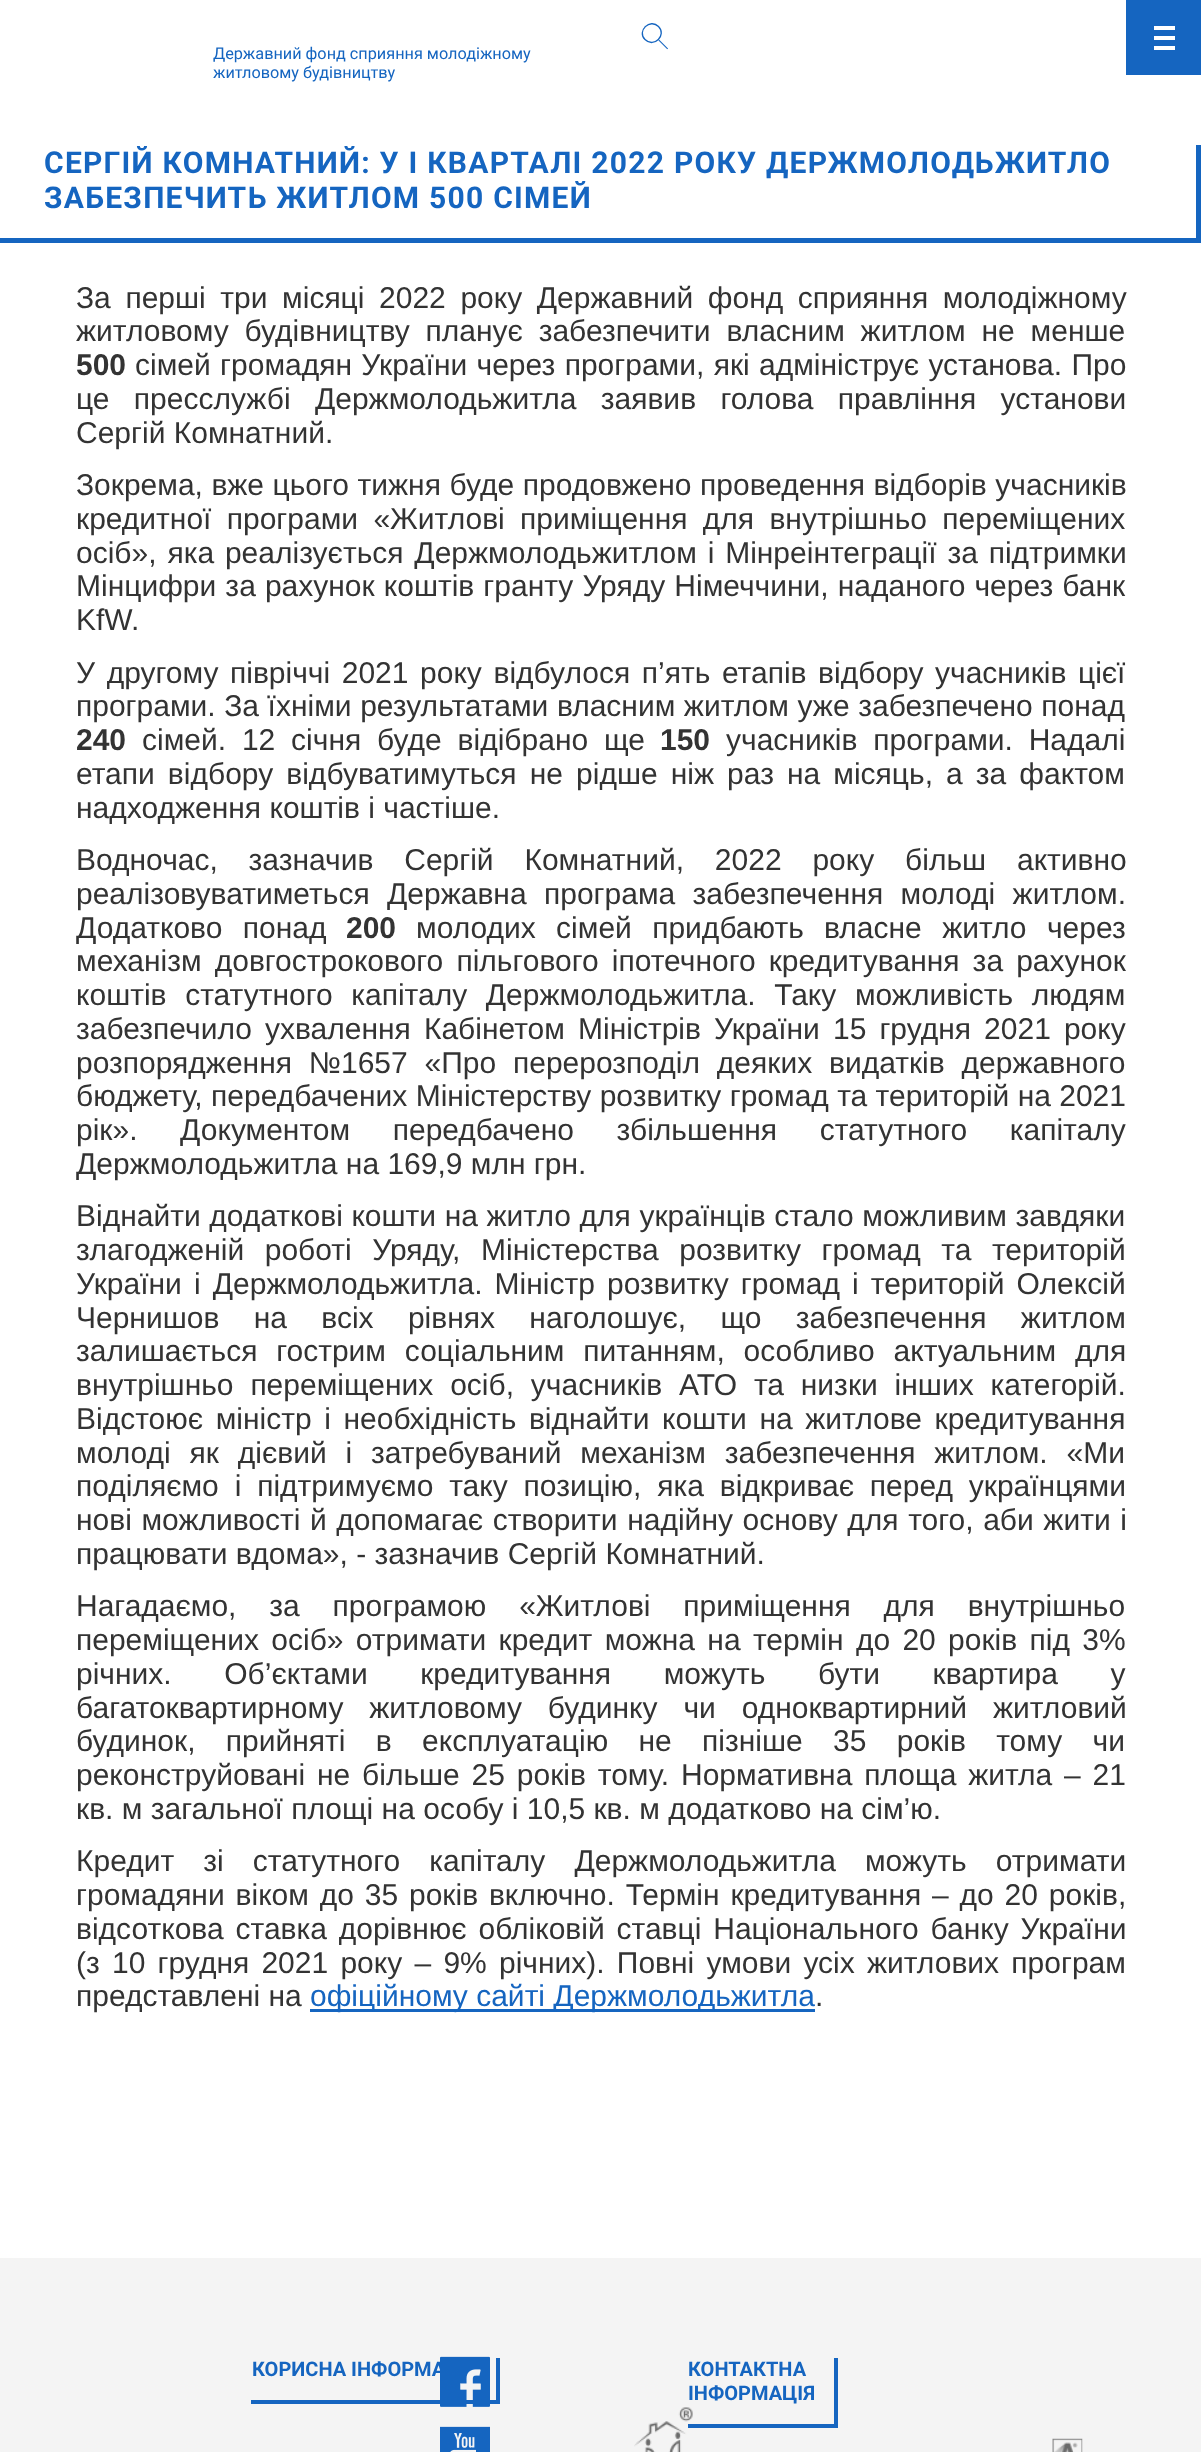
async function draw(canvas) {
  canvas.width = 1201
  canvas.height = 2452
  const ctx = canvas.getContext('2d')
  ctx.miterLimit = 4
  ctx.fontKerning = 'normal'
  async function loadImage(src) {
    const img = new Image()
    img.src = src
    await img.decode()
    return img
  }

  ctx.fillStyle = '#fff'
  ctx.fillRect(0, 0, 1201, 2452)
  ctx.fillStyle = '#1565c0'
  ctx.beginPath()
  ctx.moveTo(667, 49)
  ctx.lineTo(644.5, 26.5)
  ctx.bezierCurveTo(644.5, 26, 645, 25.5, 645.5, 26)
  ctx.lineTo(667.5, 48)
  ctx.bezierCurveTo(668.5, 48.5, 667.5, 49.5, 667, 49)
  ctx.closePath()
  ctx.fill()
  ctx.fillStyle = '#fff'
  ctx.beginPath()
  ctx.moveTo(645, 40)
  ctx.bezierCurveTo(635.5, 31, 649.5, 16.5, 659, 26)
  ctx.bezierCurveTo(668, 35.5, 654, 49.5, 645, 40)
  ctx.closePath()
  ctx.fill()
  ctx.beginPath()
  ctx.moveTo(645, 39.5)
  ctx.bezierCurveTo(636.5, 31, 650, 18, 658.5, 26.5)
  ctx.bezierCurveTo(667, 35, 654, 48.5, 645, 39.5)
  ctx.closePath()
  ctx.strokeStyle = '#1565c0'
  ctx.lineWidth = 1.3
  ctx.stroke()
  ctx.font = '16.25px Roboto'
  ctx.fillStyle = '#1565c0'
  ctx.fillText('Державний фонд сприяння молодіжному', 213, 59)
  ctx.fillText('житловому будівництву', 213, 78)
  ctx.fillRect(1126, 0, 75, 75)
  ctx.fillStyle = '#fff'
  ctx.fillRect(1154, 36, 21, 4)
  ctx.fillRect(1154, 26, 21, 4)
  ctx.fillRect(1154, 46, 21, 4)
  ctx.fillStyle = '#1565c0'
  ctx.fillRect(1196, 145, 5, 98)
  ctx.fillRect(0, 238, 1201, 5)
  ctx.letterSpacing = '1.25px'
  ctx.font = 'bold 30px Roboto'
  ctx.fillText('СЕРГІЙ КОМНАТНИЙ: У І КВАРТАЛІ 2022 РОКУ ДЕРЖМОЛОДЬЖИТЛО', 44, 173)
  ctx.fillText('ЗАБЕЗПЕЧИТЬ ЖИТЛОМ 500 СІМЕЙ', 44, 208)
  ctx.letterSpacing = '0px'
  ctx.wordSpacing = '6.25px'
  ctx.font = '30px Liberation Sans'
  ctx.fillStyle = '#333'
  ctx.fillText('За перші три місяці 2022 року Державний фонд сприяння молодіжному', 76, 308)
  ctx.wordSpacing = '7.5px'
  ctx.fillText('житловому будівництву планує забезпечити власним житлом не менше', 76, 341)
  ctx.wordSpacing = '0px'
  ctx.font = 'bold 30px Liberation Sans'
  ctx.fillText('500', 76, 375)
  ctx.wordSpacing = '1px'
  ctx.font = '30px Liberation Sans'
  ctx.fillText('сімей громадян України через програми, які адмініструє установа. Про', 135, 375)
  ctx.wordSpacing = '16px'
  ctx.fillText('це пресслужбі Держмолодьжитла заявив голова правління установи', 76, 409)
  ctx.wordSpacing = '0px'
  ctx.fillText('Сергій Комнатний.', 76, 443)
  ctx.wordSpacing = '0.25px'
  ctx.fillText('Зокрема, вже цього тижня буде продовжено проведення відборів учасників', 76, 495)
  ctx.wordSpacing = '7px'
  ctx.fillText('кредитної програми «Житлові приміщення для внутрішньо переміщених', 76, 529)
  ctx.wordSpacing = '2.5px'
  ctx.fillText('осіб», яка реалізується Держмолодьжитлом і Мінреінтеграції за підтримки', 76, 563)
  ctx.wordSpacing = '0.75px'
  ctx.fillText('Мінцифри за рахунок коштів гранту Уряду Німеччини, наданого через банк', 76, 596)
  ctx.wordSpacing = '0px'
  ctx.fillText('KfW.', 76, 630)
  ctx.wordSpacing = '3.25px'
  ctx.fillText('У другому півріччі 2021 року відбулося п’ять етапів відбору учасників цієї', 76, 683)
  ctx.wordSpacing = '0.25px'
  ctx.fillText('програми. За їхніми результатами власним житлом уже забезпечено понад', 76, 716)
  ctx.wordSpacing = '0px'
  ctx.font = 'bold 30px Liberation Sans'
  ctx.fillText('240', 76, 750)
  ctx.wordSpacing = '7.5px'
  ctx.font = '30px Liberation Sans'
  ctx.fillText('сімей. 12 січня буде відібрано ще', 142, 750)
  ctx.wordSpacing = '0px'
  ctx.font = 'bold 30px Liberation Sans'
  ctx.fillText('150', 660, 750)
  ctx.wordSpacing = '7.5px'
  ctx.font = '30px Liberation Sans'
  ctx.fillText('учасників програми. Надалі', 726, 750)
  ctx.wordSpacing = '4.75px'
  ctx.fillText('етапи відбору відбуватимуться не рідше ніж раз на місяць, а за фактом', 76, 784)
  ctx.wordSpacing = '0px'
  ctx.fillText('надходження коштів і частіше.', 76, 818)
  ctx.wordSpacing = '22.5px'
  ctx.fillText('Водночас, зазначив Сергій Комнатний, 2022 року більш активно', 76, 870)
  ctx.wordSpacing = '9px'
  ctx.fillText('реалізовуватиметься Державна програма забезпечення молоді житлом.', 76, 904)
  ctx.save()
  ctx.beginPath()
  ctx.rect(76, 263, 1050, 1770)
  ctx.clip()
  ctx.wordSpacing = '12px'
  ctx.fillText('Додатково понад', 76, 938)
  ctx.restore()
  ctx.wordSpacing = '0px'
  ctx.font = 'bold 30px Liberation Sans'
  ctx.fillText('200', 346, 938)
  ctx.wordSpacing = '12px'
  ctx.font = '30px Liberation Sans'
  ctx.fillText('молодих сімей придбають власне житло через', 416, 938)
  ctx.wordSpacing = '4.75px'
  ctx.fillText('механізм довгострокового пільгового іпотечного кредитування за рахунок', 76, 971)
  ctx.wordSpacing = '10.25px'
  ctx.fillText('коштів статутного капіталу Держмолодьжитла. Таку можливість людям', 76, 1005)
  ctx.wordSpacing = '4.75px'
  ctx.fillText('забезпечило ухвалення Кабінетом Міністрів України 15 грудня 2021 року', 76, 1039)
  ctx.wordSpacing = '8.5px'
  ctx.fillText('розпорядження №1657 «Про перерозподіл деяких видатків державного', 76, 1073)
  ctx.wordSpacing = '0px'
  ctx.fillText('бюджету, передбачених Міністерству розвитку громад та територій на 2021', 76, 1106)
  ctx.wordSpacing = '34.25px'
  ctx.fillText('рік». Документом передбачено збільшення статутного капіталу', 76, 1140)
  ctx.save()
  ctx.beginPath()
  ctx.rect(76, 263, 1050, 1770)
  ctx.clip()
  ctx.wordSpacing = '0px'
  ctx.fillText('Держмолодьжитла на 169,9 млн грн.', 76, 1174)
  ctx.restore()
  ctx.wordSpacing = '0.25px'
  ctx.fillText('Віднайти додаткові кошти на житло для українців стало можливим завдяки', 76, 1226)
  ctx.wordSpacing = '12.25px'
  ctx.fillText('злагодженій роботі Уряду, Міністерства розвитку громад та територій', 76, 1260)
  ctx.wordSpacing = '3.75px'
  ctx.fillText('України і Держмолодьжитла. Міністр розвитку громад і територій Олексій', 76, 1294)
  ctx.wordSpacing = '26px'
  ctx.fillText('Чернишов на всіх рівнях наголошує, що забезпечення житлом', 76, 1328)
  ctx.wordSpacing = '10.5px'
  ctx.fillText('залишається гострим соціальним питанням, особливо актуальним для', 76, 1361)
  ctx.wordSpacing = '8.5px'
  ctx.fillText('внутрішньо переміщених осіб, учасників АТО та низки інших категорій.', 76, 1395)
  ctx.wordSpacing = '4.25px'
  ctx.fillText('Відстоює міністр і необхідність віднайти кошти на житлове кредитування', 76, 1429)
  ctx.wordSpacing = '10.5px'
  ctx.fillText('молоді як дієвий і затребуваний механізм забезпечення житлом. «Ми', 76, 1463)
  ctx.wordSpacing = '7.5px'
  ctx.fillText('поділяємо і підтримуємо таку позицію, яка відкриває перед українцями', 76, 1496)
  ctx.wordSpacing = '1.25px'
  ctx.fillText('нові можливості й допомагає створити надійну основу для того, аби жити і', 76, 1530)
  ctx.wordSpacing = '0px'
  ctx.fillText('працювати вдома», - зазначив Сергій Комнатний.', 76, 1564)
  ctx.wordSpacing = '24.5px'
  ctx.fillText('Нагадаємо, за програмою «Житлові приміщення для внутрішньо', 76, 1616)
  ctx.wordSpacing = '4px'
  ctx.fillText('переміщених осіб» отримати кредит можна на термін до 20 років під 3%', 76, 1650)
  ctx.wordSpacing = '44.25px'
  ctx.fillText('річних. Об’єктами кредитування можуть бути квартира у', 76, 1684)
  ctx.wordSpacing = '17.5px'
  ctx.fillText('багатоквартирному житловому будинку чи одноквартирний житловий', 76, 1718)
  ctx.wordSpacing = '22px'
  ctx.fillText('будинок, прийняті в експлуатацію не пізніше 35 років тому чи', 76, 1751)
  ctx.wordSpacing = '3.5px'
  ctx.fillText('реконструйовані не більше 25 років тому. Нормативна площа житла – 21', 76, 1785)
  ctx.wordSpacing = '0px'
  ctx.fillText('кв. м загальної площі на особу і 10,5 кв. м додатково на сім’ю.', 76, 1819)
  ctx.wordSpacing = '20.75px'
  ctx.fillText('Кредит зі статутного капіталу Держмолодьжитла можуть отримати', 76, 1871)
  ctx.wordSpacing = '2.5px'
  ctx.fillText('громадяни віком до 35 років включно. Термін кредитування – до 20 років,', 76, 1905)
  ctx.wordSpacing = '3.5px'
  ctx.fillText('відсоткова ставка дорівнює обліковій ставці Національного банку України', 76, 1939)
  ctx.wordSpacing = '3.9px'
  ctx.fillText('(з 10 грудня 2021 року – 9% річних). Повні умови усіх житлових програм', 76, 1973)
  ctx.wordSpacing = '0px'
  ctx.fillText('представлені на', 76, 2006)
  ctx.fillStyle = '#1565c0'
  ctx.fillRect(310, 2009, 505, 3)
  ctx.fillText('офіційному сайті Держмолодьжитла', 310, 2006)
  ctx.fillStyle = '#333'
  ctx.fillText('.', 815, 2006)
  ctx.fillStyle = '#f4f4f4'
  ctx.fillRect(0, 2258, 1201, 194)
  ctx.fillStyle = '#1565c0'
  ctx.fillRect(496, 2358, 4, 46)
  ctx.fillRect(251, 2400, 249, 4)
  ctx.font = 'bold 20px Roboto'
  ctx.fillText('КОРИСНА ІНФОРМА', 252, 2376)
  ctx.drawImage(await loadImage('image0.png'), 440, 2356, 50, 51)
  ctx.fillRect(476, 2449, 4, 3)
  ctx.drawImage(await loadImage('image1.png'), 440, 2426, 50, 26)
  ctx.fillRect(834, 2358, 4, 70)
  ctx.drawImage(await loadImage('image2.png'), 634, 2407, 59, 45)
  ctx.fillRect(688, 2424, 150, 4)
  ctx.fillText('КОНТАКТНА', 688, 2376)
  ctx.fillText('ІНФОРМАЦІЯ', 688, 2400)
  ctx.drawImage(await loadImage('image3.png'), 1052, 2438, 31, 14)
}

draw(document.querySelector('canvas'))
